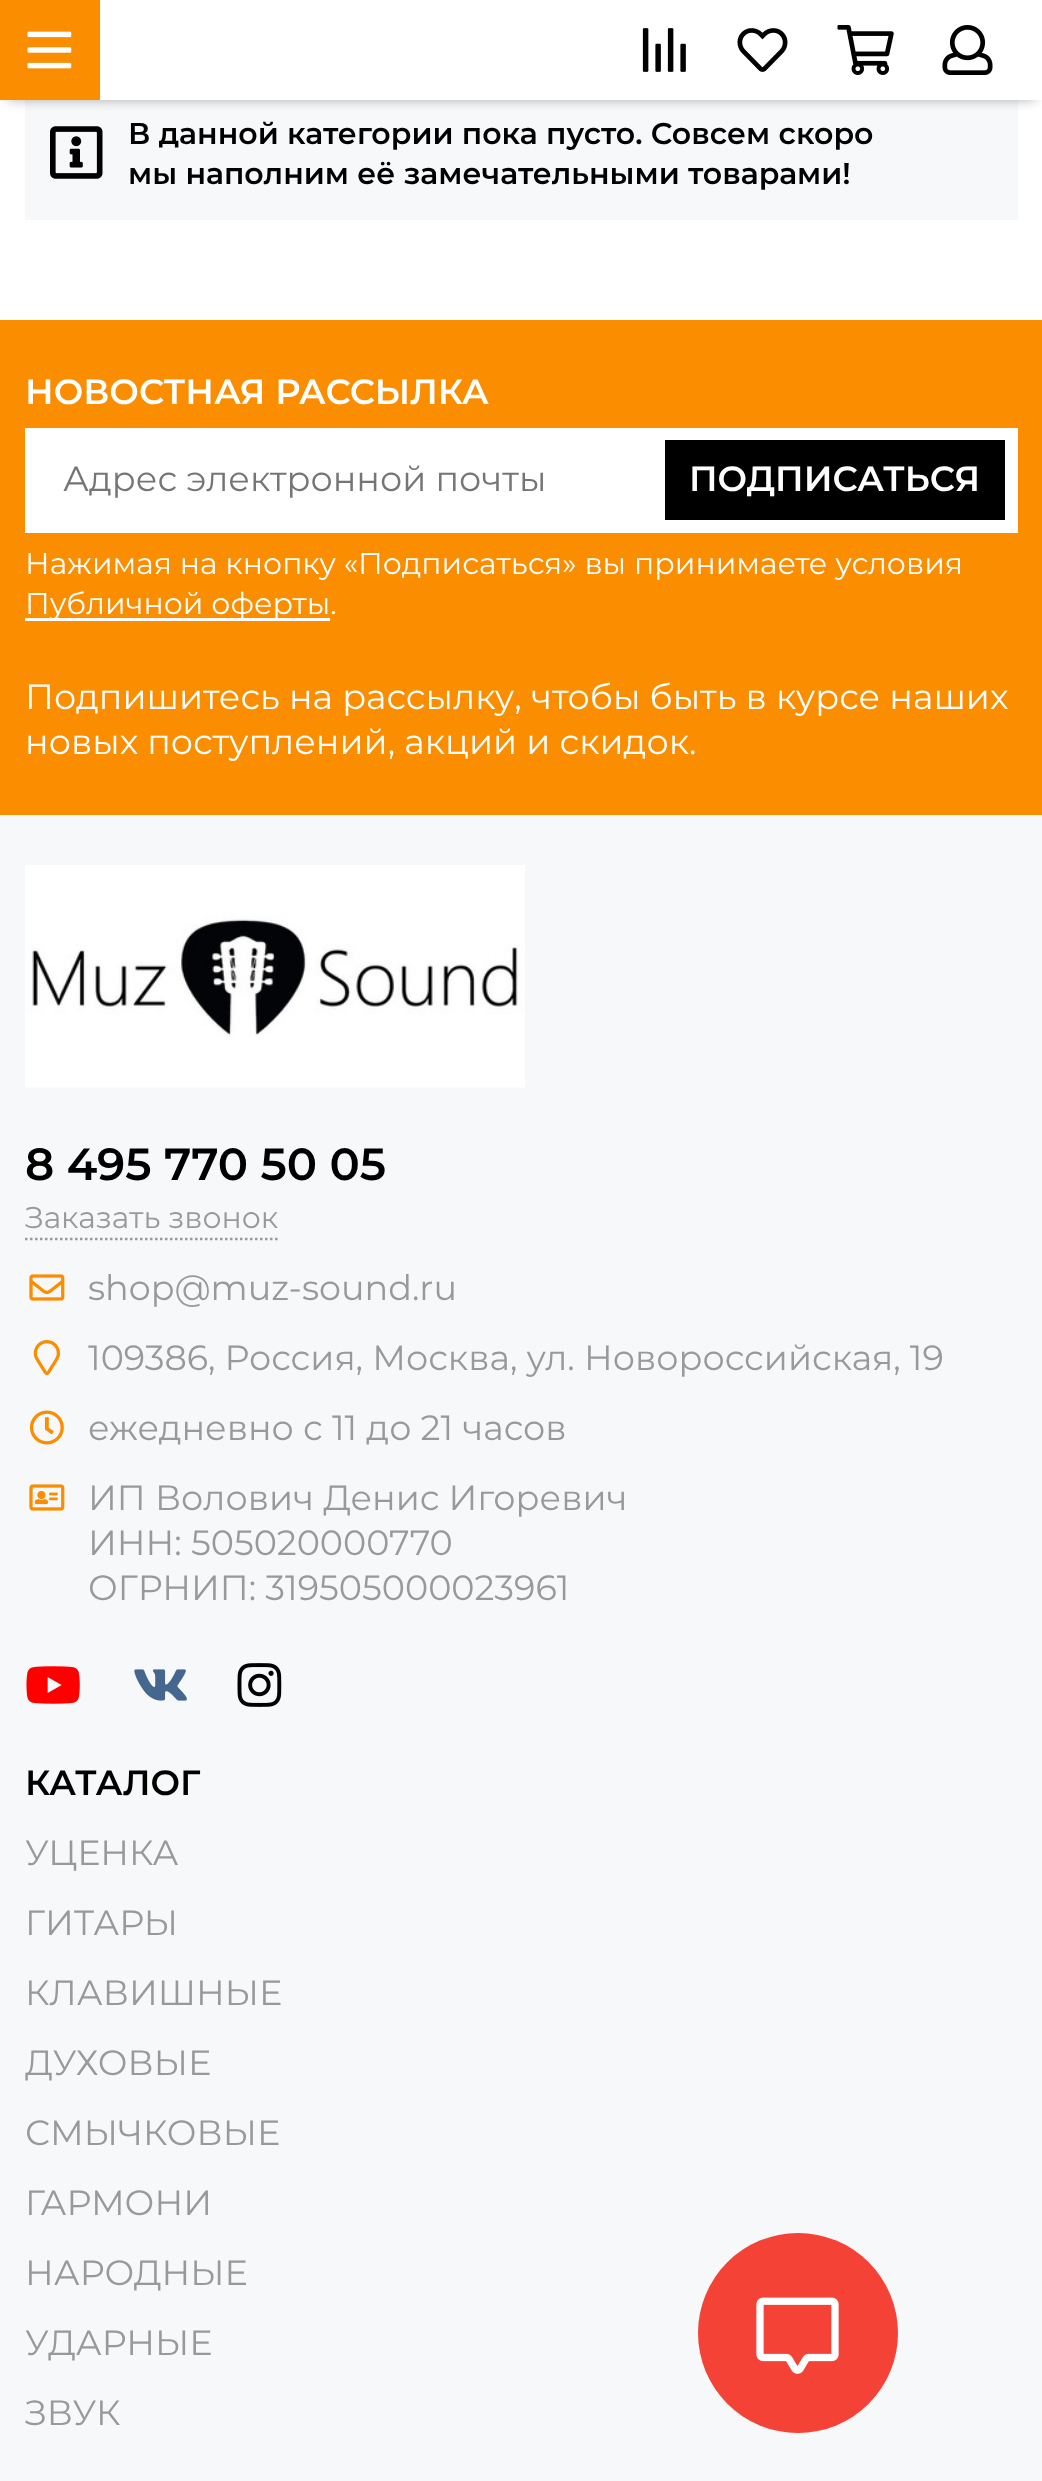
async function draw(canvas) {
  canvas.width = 1042
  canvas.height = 2481
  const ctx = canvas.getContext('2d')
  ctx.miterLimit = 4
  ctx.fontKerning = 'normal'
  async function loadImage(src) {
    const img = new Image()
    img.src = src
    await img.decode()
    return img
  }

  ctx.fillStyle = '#fff'
  ctx.fillRect(0, 0, 1042, 2481)
  ctx.fillStyle = '#f7f8fa'
  ctx.fillRect(25, 100, 993, 120)
  ctx.fillStyle = '#0000004d'
  ctx.filter = 'blur(6px)'
  ctx.beginPath()
  ctx.rect(8, 15, 1027, 85)
  ctx.fill()
  ctx.filter = 'none'
  ctx.fillStyle = '#fff'
  ctx.fillRect(100, 4, 942, 96)
  ctx.fillStyle = '#fa8d00'
  ctx.fillRect(0, 0, 100, 100)
  ctx.drawImage(await loadImage('image0.png'), 27, 31, 45, 38)
  ctx.drawImage(await loadImage('image1.png'), 642, 28, 44, 44)
  ctx.drawImage(await loadImage('image2.png'), 737, 28, 51, 44)
  ctx.drawImage(await loadImage('image3.png'), 837, 25, 57, 50)
  ctx.drawImage(await loadImage('image4.png'), 942, 25, 51, 50)
  ctx.drawImage(await loadImage('image5.png'), 50, 126, 53, 53)
  ctx.font = '600 30px Montserrat'
  ctx.fillStyle = '#000'
  ctx.fillText('В данной категории пока пусто. Совсем скоро', 128, 144)
  ctx.fillText('мы наполним её замечательными товарами!', 128, 184)
  ctx.fillStyle = '#fa8d00'
  ctx.fillRect(0, 320, 1042, 495)
  ctx.font = '600 35px Montserrat'
  ctx.fillStyle = '#fff'
  ctx.fillText('НОВОСТНАЯ РАССЫЛКА', 25, 404)
  ctx.fillRect(25, 428, 993, 105)
  ctx.font = '35px Montserrat'
  ctx.fillStyle = '#757575'
  ctx.fillText('Адрес электронной почты', 63, 491)
  ctx.fillStyle = '#000'
  ctx.fillRect(665, 440, 340, 80)
  ctx.font = '600 35px Montserrat'
  ctx.fillStyle = '#fff'
  ctx.fillText('ПОДПИСАТЬСЯ', 689, 491)
  ctx.font = '30px Montserrat'
  ctx.fillText('Нажимая на кнопку «Подписаться» вы принимаете условия', 25, 574)
  ctx.fillRect(25, 618, 305, 3)
  ctx.fillText('Публичной оферты.', 25, 614)
  ctx.font = '35px Montserrat'
  ctx.fillText('Подпишитесь на рассылку, чтобы быть в курсе наших', 25, 709)
  ctx.fillText('новых поступлений, акций и скидок.', 25, 754)
  ctx.fillStyle = '#f7f8fa'
  ctx.fillRect(0, 815, 1042, 1666)
  ctx.drawImage(await loadImage('image6.png'), 25, 865, 500, 223)
  ctx.font = '600 45px Montserrat'
  ctx.fillStyle = '#000'
  ctx.fillText('8 495 770 50 05', 25, 1180)
  ctx.beginPath()
  ctx.moveTo(25, 1239)
  ctx.lineTo(277.5, 1239)
  ctx.strokeStyle = '#999'
  ctx.lineWidth = 2.5
  ctx.setLineDash([2.5, 2.5])
  ctx.stroke()
  ctx.font = '30px Montserrat'
  ctx.fillStyle = '#999'
  ctx.fillText('Заказать звонок', 25, 1228)
  ctx.drawImage(await loadImage('image7.png'), 29, 1274, 36, 27)
  ctx.font = '35px Montserrat'
  ctx.fillText('shop@muz-sound.ru', 88, 1300)
  ctx.drawImage(await loadImage('image8.png'), 33, 1340, 27, 35)
  ctx.fillText('109386', 88, 1370)
  ctx.fillText(', Россия, Москва, ул. Новороссийская, 19', 208, 1370)
  ctx.drawImage(await loadImage('image9.png'), 29, 1410, 35, 35)
  ctx.fillText('ежедневно с 11 до 21 часов', 88, 1440)
  ctx.drawImage(await loadImage('image10.png'), 29, 1484, 36, 27)
  ctx.fillText('ИП Волович Денис Игоревич', 88, 1510)
  ctx.fillText('ИНН: 505020000770', 88, 1555)
  ctx.fillText('ОГРНИП: 319505000023961', 88, 1600)
  ctx.drawImage(await loadImage('image11.png'), 26, 1666, 54, 38)
  ctx.drawImage(await loadImage('image12.png'), 134, 1669, 53, 32)
  ctx.drawImage(await loadImage('image13.png'), 237, 1663, 45, 44)
  ctx.font = '600 35px Montserrat'
  ctx.fillStyle = '#000'
  ctx.fillText('КАТАЛОГ', 25, 1795)
  ctx.font = '35px Montserrat'
  ctx.fillStyle = '#999'
  ctx.fillText('УЦЕНКА', 25, 1865)
  ctx.fillText('ГИТАРЫ', 25, 1935)
  ctx.fillText('КЛАВИШНЫЕ', 25, 2005)
  ctx.fillText('ДУХОВЫЕ', 25, 2075)
  ctx.fillText('СМЫЧКОВЫЕ', 25, 2145)
  ctx.fillText('ГАРМОНИ', 25, 2215)
  ctx.fillText('НАРОДНЫЕ', 25, 2285)
  ctx.fillText('УДАРНЫЕ', 25, 2355)
  ctx.fillText('ЗВУК', 25, 2425)
  ctx.fillStyle = '#f44236'
  ctx.beginPath()
  ctx.arc(798, 2333, 100, 0, 2 * Math.PI)
  ctx.fill()
  ctx.drawImage(await loadImage('image14.png'), 756, 2297, 83, 77)
}

draw(document.querySelector('canvas'))
